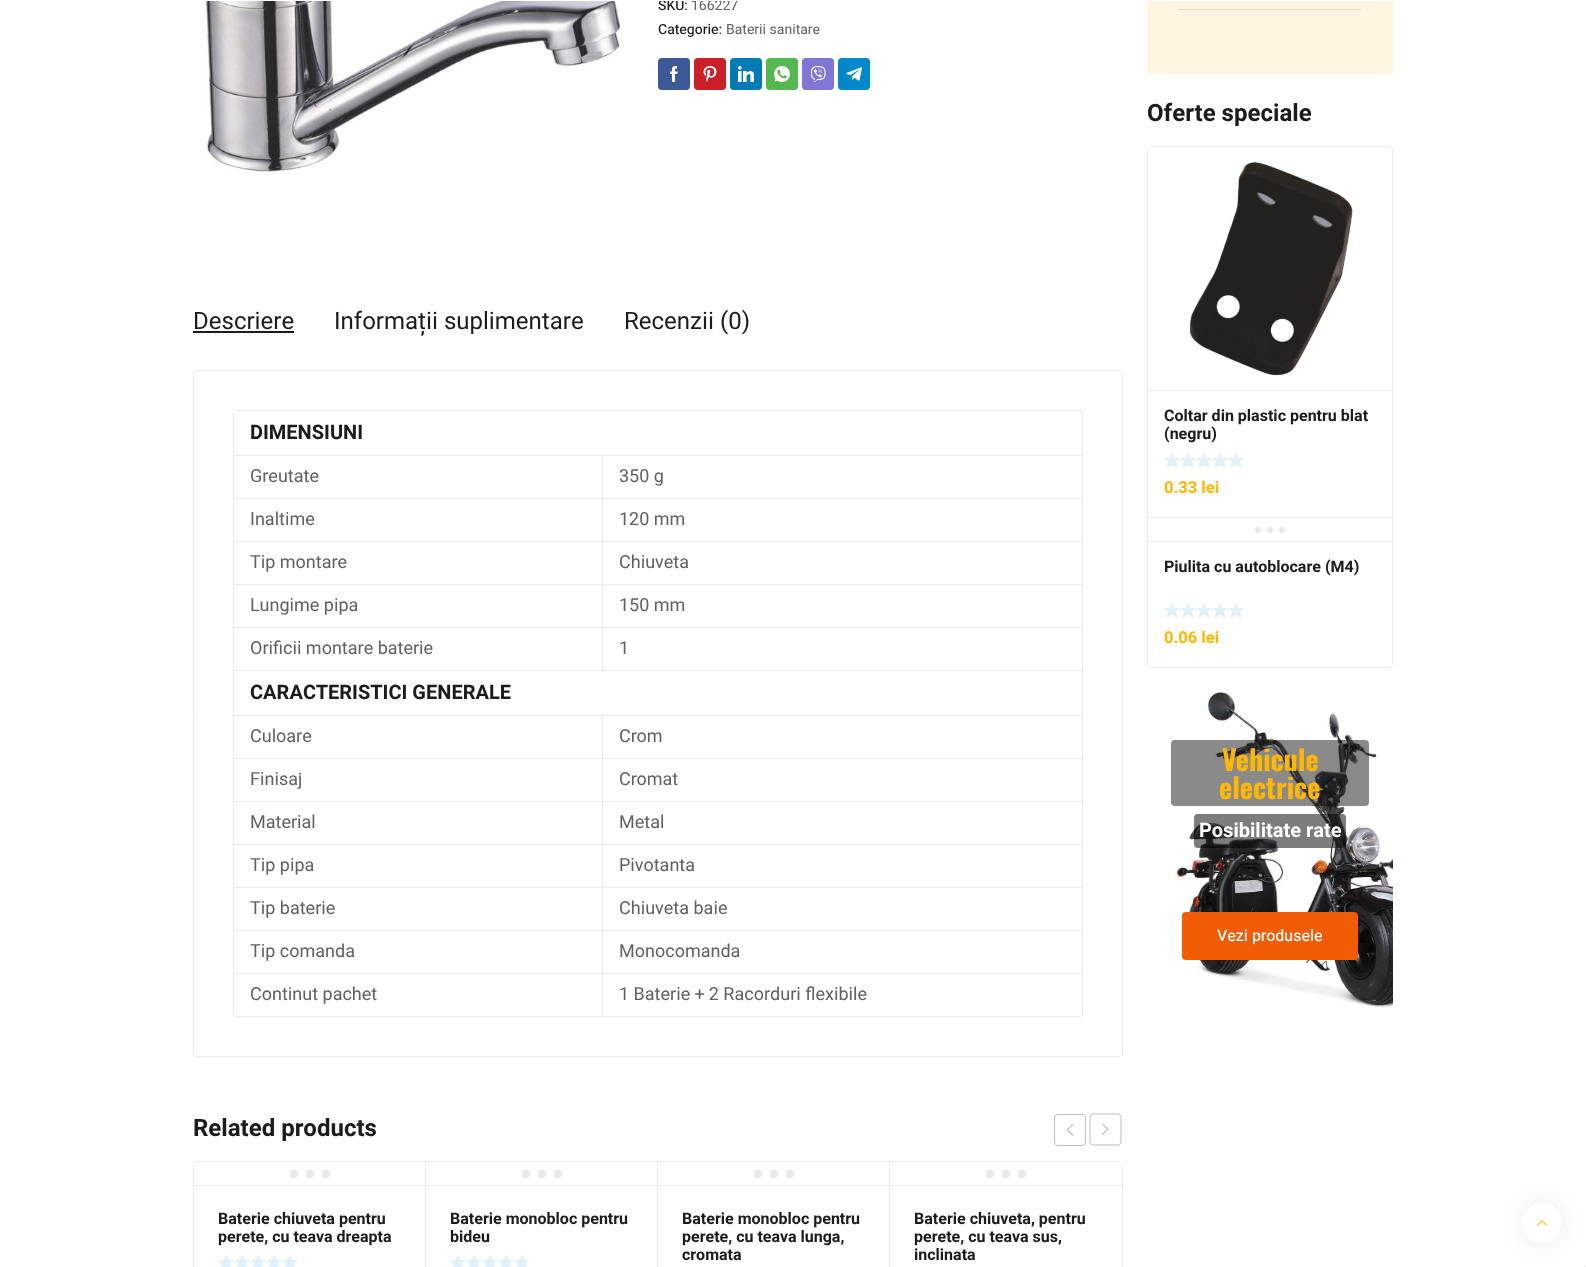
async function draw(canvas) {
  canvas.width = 1586
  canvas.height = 1267
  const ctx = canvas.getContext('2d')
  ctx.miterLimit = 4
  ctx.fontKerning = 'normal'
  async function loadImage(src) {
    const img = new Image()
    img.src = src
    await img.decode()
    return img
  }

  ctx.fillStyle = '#fff'
  ctx.fillRect(0, 0, 1586, 1267)
  ctx.drawImage(await loadImage('image0.png'), 205, 1, 416, 173)
  ctx.font = '500 14px Heebo'
  ctx.fillStyle = '#1c1c1e'
  ctx.fillText('SKU:', 658, 10)
  ctx.font = '14px Heebo'
  ctx.fillStyle = '#616161'
  ctx.fillText('166227', 691, 10)
  ctx.font = '500 14px Heebo'
  ctx.fillStyle = '#1c1c1e'
  ctx.fillText('Categorie:', 658, 34)
  ctx.font = '14px Heebo'
  ctx.fillStyle = '#616161'
  ctx.fillText('Baterii sanitare', 726, 34)
  ctx.fillStyle = '#3b5998'
  ctx.beginPath()
  ctx.roundRect(658, 58, 32, 32, 4)
  ctx.fill()
  ctx.drawImage(await loadImage('image1.png'), 670, 66, 8, 16)
  ctx.fillStyle = '#cb2027'
  ctx.beginPath()
  ctx.roundRect(694, 58, 32, 32, 4)
  ctx.fill()
  ctx.drawImage(await loadImage('image2.png'), 703, 66, 14, 16)
  ctx.fillStyle = '#007bb6'
  ctx.beginPath()
  ctx.roundRect(730, 58, 32, 32, 4)
  ctx.fill()
  ctx.drawImage(await loadImage('image3.png'), 738, 66, 16, 16)
  ctx.fillStyle = '#55b750'
  ctx.beginPath()
  ctx.roundRect(766, 58, 32, 32, 4)
  ctx.fill()
  ctx.drawImage(await loadImage('image4.png'), 774, 66, 16, 16)
  ctx.fillStyle = '#8176d6'
  ctx.beginPath()
  ctx.roundRect(802, 58, 32, 32, 4)
  ctx.fill()
  ctx.drawImage(await loadImage('image5.png'), 810, 66, 16, 16)
  ctx.fillStyle = '#08c'
  ctx.beginPath()
  ctx.roundRect(838, 58, 32, 32, 4)
  ctx.fill()
  ctx.drawImage(await loadImage('image6.png'), 846, 67, 16, 14)
  ctx.font = '24px Heebo'
  ctx.fillStyle = '#1c1c1e'
  ctx.fillText('Descriere', 193, 329)
  ctx.fillRect(193, 331, 101, 2)
  ctx.fillText('Informații suplimentare', 334, 329)
  ctx.fillText('Recenzii (0)', 624, 329)
  ctx.beginPath()
  ctx.roundRect(193.5, 370.5, 929, 686, 3.5)
  ctx.strokeStyle = '#eaeaea'
  ctx.stroke()
  ctx.save()
  ctx.beginPath()
  ctx.roundRect(233, 410, 850, 607, 4)
  ctx.clip()
  ctx.fillStyle = '#eaeaea'
  ctx.fillRect(233, 410, 850, 1)
  ctx.restore()
  ctx.fillStyle = '#eaeaea'
  ctx.fillRect(602, 455, 481, 1)
  ctx.fillRect(602, 498, 481, 1)
  ctx.fillRect(602, 541, 481, 1)
  ctx.fillRect(602, 584, 481, 1)
  ctx.fillRect(602, 627, 481, 1)
  ctx.fillRect(233, 670, 850, 1)
  ctx.fillRect(602, 715, 481, 1)
  ctx.fillRect(602, 758, 481, 1)
  ctx.fillRect(602, 801, 481, 1)
  ctx.fillRect(602, 844, 481, 1)
  ctx.fillRect(602, 887, 481, 1)
  ctx.fillRect(602, 930, 481, 1)
  ctx.fillRect(602, 973, 481, 1)
  ctx.save()
  ctx.beginPath()
  ctx.roundRect(233, 410, 850, 607, 4)
  ctx.clip()
  ctx.fillRect(1082, 973, 1, 44)
  ctx.restore()
  ctx.fillRect(1082, 930, 1, 44)
  ctx.fillRect(1082, 887, 1, 44)
  ctx.fillRect(1082, 844, 1, 44)
  ctx.fillRect(1082, 801, 1, 44)
  ctx.fillRect(1082, 758, 1, 44)
  ctx.fillRect(1082, 715, 1, 44)
  ctx.fillRect(1082, 670, 1, 46)
  ctx.fillRect(1082, 627, 1, 44)
  ctx.fillRect(1082, 584, 1, 44)
  ctx.fillRect(1082, 541, 1, 44)
  ctx.fillRect(1082, 498, 1, 44)
  ctx.fillRect(1082, 455, 1, 44)
  ctx.save()
  ctx.beginPath()
  ctx.roundRect(233, 410, 850, 607, 4)
  ctx.clip()
  ctx.fillRect(1082, 410, 1, 46)
  ctx.restore()
  ctx.fillRect(602, 627, 1, 44)
  ctx.fillRect(233, 627, 370, 1)
  ctx.fillRect(602, 584, 1, 44)
  ctx.fillRect(233, 584, 370, 1)
  ctx.fillRect(602, 541, 1, 44)
  ctx.fillRect(233, 541, 370, 1)
  ctx.fillRect(602, 498, 1, 44)
  ctx.fillRect(233, 498, 370, 1)
  ctx.fillRect(602, 455, 1, 44)
  ctx.fillRect(233, 455, 370, 1)
  ctx.save()
  ctx.beginPath()
  ctx.roundRect(233, 410, 850, 607, 4)
  ctx.clip()
  ctx.fillRect(602, 1016, 481, 1)
  ctx.restore()
  ctx.fillRect(602, 973, 1, 44)
  ctx.fillRect(233, 973, 370, 1)
  ctx.fillRect(602, 930, 1, 44)
  ctx.fillRect(233, 930, 370, 1)
  ctx.fillRect(602, 887, 1, 44)
  ctx.fillRect(233, 887, 370, 1)
  ctx.fillRect(602, 844, 1, 44)
  ctx.fillRect(233, 844, 370, 1)
  ctx.fillRect(602, 801, 1, 44)
  ctx.fillRect(233, 801, 370, 1)
  ctx.fillRect(602, 758, 1, 44)
  ctx.fillRect(233, 758, 370, 1)
  ctx.fillRect(602, 715, 1, 44)
  ctx.fillRect(233, 715, 370, 1)
  ctx.save()
  ctx.beginPath()
  ctx.roundRect(233, 410, 850, 607, 4)
  ctx.clip()
  ctx.fillRect(233, 1016, 370, 1)
  ctx.fillRect(233, 973, 1, 44)
  ctx.restore()
  ctx.fillRect(233, 930, 1, 44)
  ctx.fillRect(233, 887, 1, 44)
  ctx.fillRect(233, 844, 1, 44)
  ctx.fillRect(233, 801, 1, 44)
  ctx.fillRect(233, 758, 1, 44)
  ctx.fillRect(233, 715, 1, 44)
  ctx.fillRect(233, 670, 1, 46)
  ctx.fillRect(233, 627, 1, 44)
  ctx.fillRect(233, 584, 1, 44)
  ctx.fillRect(233, 541, 1, 44)
  ctx.fillRect(233, 498, 1, 44)
  ctx.fillRect(233, 455, 1, 44)
  ctx.save()
  ctx.beginPath()
  ctx.roundRect(233, 410, 850, 607, 4)
  ctx.clip()
  ctx.fillRect(233, 410, 1, 46)
  ctx.restore()
  ctx.beginPath()
  ctx.moveTo(1079, 410)
  ctx.bezierCurveTo(1081, 410, 1083, 412, 1083, 414)
  ctx.lineTo(1079, 414)
  ctx.closePath()
  ctx.moveTo(1079, 411)
  ctx.bezierCurveTo(1080.5, 411, 1082, 412.5, 1082, 414)
  ctx.lineTo(1079, 414)
  ctx.closePath()
  ctx.fill('evenodd')
  ctx.font = 'bold 20px Heebo'
  ctx.fillStyle = '#1c1c1e'
  ctx.fillText('DIMENSIUNI', 250, 439)
  ctx.font = '18px Heebo'
  ctx.fillStyle = '#616161'
  ctx.fillText('Greutate', 250, 482)
  ctx.fillText('350 g', 619, 482)
  ctx.fillText('Inaltime', 250, 525)
  ctx.fillText('120 mm', 619, 525)
  ctx.fillText('Tip montare', 250, 568)
  ctx.fillText('Chiuveta', 619, 568)
  ctx.fillText('Lungime pipa', 250, 611)
  ctx.fillText('150 mm', 619, 611)
  ctx.fillText('Orificii montare baterie', 250, 654)
  ctx.fillText('1', 619, 654)
  ctx.font = 'bold 20px Heebo'
  ctx.fillStyle = '#1c1c1e'
  ctx.fillText('CARACTERISTICI GENERALE', 250, 699)
  ctx.font = '18px Heebo'
  ctx.fillStyle = '#616161'
  ctx.fillText('Culoare', 250, 742)
  ctx.fillText('Crom', 619, 742)
  ctx.fillText('Finisaj', 250, 785)
  ctx.fillText('Cromat', 619, 785)
  ctx.fillText('Material', 250, 828)
  ctx.fillText('Metal', 619, 828)
  ctx.fillText('Tip pipa', 250, 871)
  ctx.fillText('Pivotanta', 619, 871)
  ctx.fillText('Tip baterie', 250, 914)
  ctx.fillText('Chiuveta baie', 619, 914)
  ctx.fillText('Tip comanda', 250, 957)
  ctx.fillText('Monocomanda', 619, 957)
  ctx.fillText('Continut pachet', 250, 1000)
  ctx.fillText('1 Baterie + 2 Racorduri flexibile', 619, 1000)
  ctx.fillStyle = '#eaeaea'
  ctx.beginPath()
  ctx.moveTo(1079, 1013)
  ctx.lineTo(1083, 1013)
  ctx.bezierCurveTo(1083, 1015, 1081, 1017, 1079, 1017)
  ctx.closePath()
  ctx.moveTo(1079, 1013)
  ctx.lineTo(1082, 1013)
  ctx.bezierCurveTo(1082, 1014.5, 1080.5, 1016, 1079, 1016)
  ctx.closePath()
  ctx.fill('evenodd')
  ctx.font = 'bold 24px Heebo'
  ctx.fillStyle = '#1c1c1e'
  ctx.fillText('Related products', 193, 1136)
  ctx.beginPath()
  ctx.roundRect(193.5, 1161.5, 929, 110, 3.5)
  ctx.stroke()
  ctx.beginPath()
  ctx.roundRect(1054.5, 1114.5, 31, 31, 3.5)
  ctx.strokeStyle = '#bdbdbd'
  ctx.stroke()
  ctx.drawImage(await loadImage('image7.png'), 1066, 1124, 8, 12)
  ctx.beginPath()
  ctx.moveTo(1117.5, 1145)
  ctx.lineTo(1093.5, 1145)
  ctx.bezierCurveTo(1091.5, 1145, 1090, 1143.5, 1090, 1141.5)
  ctx.lineTo(1090, 1117.5)
  ctx.bezierCurveTo(1090, 1115.5, 1091.5, 1114, 1093.5, 1114)
  ctx.lineTo(1117.5, 1114)
  ctx.bezierCurveTo(1119.5, 1114, 1121, 1115.5, 1121, 1117.5)
  ctx.lineTo(1121, 1141.5)
  ctx.bezierCurveTo(1121, 1143.5, 1119.5, 1145, 1117.5, 1145)
  ctx.closePath()
  ctx.stroke()
  ctx.drawImage(await loadImage('image8.png'), 1101, 1124, 8, 11)
  ctx.fillStyle = '#fff'
  ctx.fillRect(194, 1162, 2, 2)
  ctx.fillStyle = '#e8e8e9'
  ctx.beginPath()
  ctx.arc(294, 1174, 4, 0, 2 * Math.PI)
  ctx.fill()
  ctx.beginPath()
  ctx.arc(310, 1174, 4, 0, 2 * Math.PI)
  ctx.fill()
  ctx.beginPath()
  ctx.arc(326, 1174, 4, 0, 2 * Math.PI)
  ctx.fill()
  ctx.fillStyle = '#eaeaea'
  ctx.fillRect(194, 1185, 231, 1)
  ctx.font = 'bold 16px Heebo'
  ctx.fillStyle = '#1c1c1e'
  ctx.fillText('Baterie chiuveta pentru', 218, 1224)
  ctx.fillText('perete, cu teava dreapta', 218, 1242)
  ctx.drawImage(await loadImage('image9.png'), 218, 1254, 80, 13)
  ctx.save()
  ctx.beginPath()
  ctx.rect(194, 1162, 928, 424)
  ctx.clip()
  ctx.strokeStyle = '#eaeaea'
  ctx.strokeRect(425.5, 1161.5, 233, 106)
  ctx.restore()
  ctx.fillStyle = '#e8e8e9'
  ctx.beginPath()
  ctx.arc(526, 1174, 4, 0, 2 * Math.PI)
  ctx.fill()
  ctx.beginPath()
  ctx.arc(542, 1174, 4, 0, 2 * Math.PI)
  ctx.fill()
  ctx.beginPath()
  ctx.arc(558, 1174, 4, 0, 2 * Math.PI)
  ctx.fill()
  ctx.fillStyle = '#eaeaea'
  ctx.fillRect(426, 1185, 231, 1)
  ctx.fillStyle = '#1c1c1e'
  ctx.fillText('Baterie monobloc pentru', 450, 1224)
  ctx.fillText('bideu', 450, 1242)
  ctx.drawImage(await loadImage('image9.png'), 450, 1254, 80, 13)
  ctx.save()
  ctx.beginPath()
  ctx.rect(194, 1162, 928, 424)
  ctx.clip()
  ctx.strokeStyle = '#eaeaea'
  ctx.strokeRect(657.5, 1161.5, 233, 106)
  ctx.restore()
  ctx.fillStyle = '#fff'
  ctx.fillRect(658, 1186, 1, 81)
  ctx.fillRect(658, 1162, 1, 23)
  ctx.fillStyle = '#e8e8e9'
  ctx.beginPath()
  ctx.arc(758, 1174, 4, 0, 2 * Math.PI)
  ctx.fill()
  ctx.beginPath()
  ctx.arc(774, 1174, 4, 0, 2 * Math.PI)
  ctx.fill()
  ctx.beginPath()
  ctx.arc(790, 1174, 4, 0, 2 * Math.PI)
  ctx.fill()
  ctx.fillStyle = '#eaeaea'
  ctx.fillRect(658, 1185, 231, 1)
  ctx.fillStyle = '#1c1c1e'
  ctx.fillText('Baterie monobloc pentru', 682, 1224)
  ctx.fillText('perete, cu teava lunga,', 682, 1242)
  ctx.fillText('cromata', 682, 1260)
  ctx.save()
  ctx.beginPath()
  ctx.rect(194, 1162, 928, 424)
  ctx.clip()
  ctx.strokeStyle = '#eaeaea'
  ctx.strokeRect(889.5, 1161.5, 234, 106)
  ctx.restore()
  ctx.fillStyle = '#fff'
  ctx.fillRect(890, 1186, 1, 81)
  ctx.fillRect(890, 1162, 232, 23)
  ctx.fillStyle = '#e8e8e9'
  ctx.beginPath()
  ctx.arc(990, 1174, 4, 0, 2 * Math.PI)
  ctx.fill()
  ctx.beginPath()
  ctx.arc(1006, 1174, 4, 0, 2 * Math.PI)
  ctx.fill()
  ctx.beginPath()
  ctx.arc(1022, 1174, 4, 0, 2 * Math.PI)
  ctx.fill()
  ctx.fillStyle = '#eaeaea'
  ctx.fillRect(890, 1185, 232, 1)
  ctx.fillStyle = '#1c1c1e'
  ctx.fillText('Baterie chiuveta, pentru', 914, 1224)
  ctx.fillText('perete, cu teava sus,', 914, 1242)
  ctx.fillText('inclinata', 914, 1260)
  ctx.fillStyle = '#fdf5e0'
  ctx.beginPath()
  ctx.roundRect(1147, -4, 246, 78, 4)
  ctx.fill()
  ctx.fillStyle = '#e4ddca'
  ctx.fillRect(1179, 9, 182, 1)
  ctx.font = 'bold 24px Heebo'
  ctx.fillStyle = '#1c1c1e'
  ctx.fillText('Oferte speciale', 1147, 121)
  ctx.beginPath()
  ctx.roundRect(1147.5, 146.5, 245, 521, 3.5)
  ctx.strokeStyle = '#eaeaea'
  ctx.stroke()
  ctx.fillStyle = '#eaeaea'
  ctx.fillRect(1148, 517, 244, 1)
  ctx.fillStyle = '#fff'
  ctx.beginPath()
  ctx.roundRect(1148, 147, 244, 370, [3, 3, 0, 0])
  ctx.fill()
  ctx.drawImage(await loadImage('image10.png'), 1189, 161, 164, 215)
  ctx.fillStyle = '#eaeaea'
  ctx.fillRect(1148, 390, 244, 1)
  ctx.font = 'bold 16px Heebo'
  ctx.fillStyle = '#1c1c1e'
  ctx.fillText('Coltar din plastic pentru blat', 1164, 421)
  ctx.fillText('(negru)', 1164, 439)
  ctx.drawImage(await loadImage('image11.png'), 1164, 452, 80, 16)
  ctx.font = 'bold 16.5px Heebo'
  ctx.fillStyle = '#ffb700'
  ctx.fillText('0.33 lei', 1164, 493)
  ctx.fillStyle = '#fff'
  ctx.beginPath()
  ctx.roundRect(1148, 518, 244, 149, [0, 0, 3, 3])
  ctx.fill()
  ctx.fillStyle = '#e8e8e9'
  ctx.beginPath()
  ctx.arc(1258, 530, 3, 0, 2 * Math.PI)
  ctx.fill()
  ctx.beginPath()
  ctx.arc(1270, 530, 3, 0, 2 * Math.PI)
  ctx.fill()
  ctx.beginPath()
  ctx.arc(1282, 530, 3, 0, 2 * Math.PI)
  ctx.fill()
  ctx.fillStyle = '#eaeaea'
  ctx.fillRect(1148, 541, 244, 1)
  ctx.font = 'bold 16px Heebo'
  ctx.fillStyle = '#1c1c1e'
  ctx.fillText('Piulita cu autoblocare (M4)', 1164, 572)
  ctx.drawImage(await loadImage('image11.png'), 1164, 602, 80, 16)
  ctx.font = 'bold 16.5px Heebo'
  ctx.fillStyle = '#ffb700'
  ctx.fillText('0.06 lei', 1164, 643)
  ctx.drawImage(await loadImage('image12.png'), 1147, 692, 246, 316)
  ctx.fillStyle = '#0a0a0a7a'
  ctx.beginPath()
  ctx.roundRect(1171, 740, 198, 66, 4)
  ctx.fill()
  ctx.font = 'bold 28px Oswald'
  ctx.fillStyle = '#ffb700'
  ctx.fillText('Vehicule', 1222, 771)
  ctx.fillText('electrice', 1219, 799)
  ctx.fillStyle = '#00000082'
  ctx.beginPath()
  ctx.roundRect(1194, 814, 152, 34, 4)
  ctx.fill()
  ctx.font = 'bold 20px Heebo'
  ctx.fillStyle = '#fff'
  ctx.fillText('Posibilitate rate', 1199, 837)
  ctx.fillStyle = '#f25c05'
  ctx.beginPath()
  ctx.roundRect(1182, 912, 176, 48, 4)
  ctx.fill()
  ctx.font = '500 16px Heebo'
  ctx.fillStyle = '#fff'
  ctx.fillText('Vezi produsele', 1217, 941)
  ctx.fillRect(659, 0, 734, 1)
  ctx.fillStyle = '#00000014'
  ctx.filter = 'blur(12px)'
  ctx.beginPath()
  ctx.roundRect(1522, 1203, 40, 40, 20)
  ctx.fill()
  ctx.filter = 'none'
  ctx.fillStyle = '#fff'
  ctx.beginPath()
  ctx.arc(1542, 1223, 20, 0, 2 * Math.PI)
  ctx.fill()
  ctx.drawImage(await loadImage('image13.png'), 1537, 1220, 10, 6)
  ctx.fillStyle = '#f5f5f5'
  ctx.fillRect(1584, 1265, 2, 2)
}

draw(document.querySelector('canvas'))
